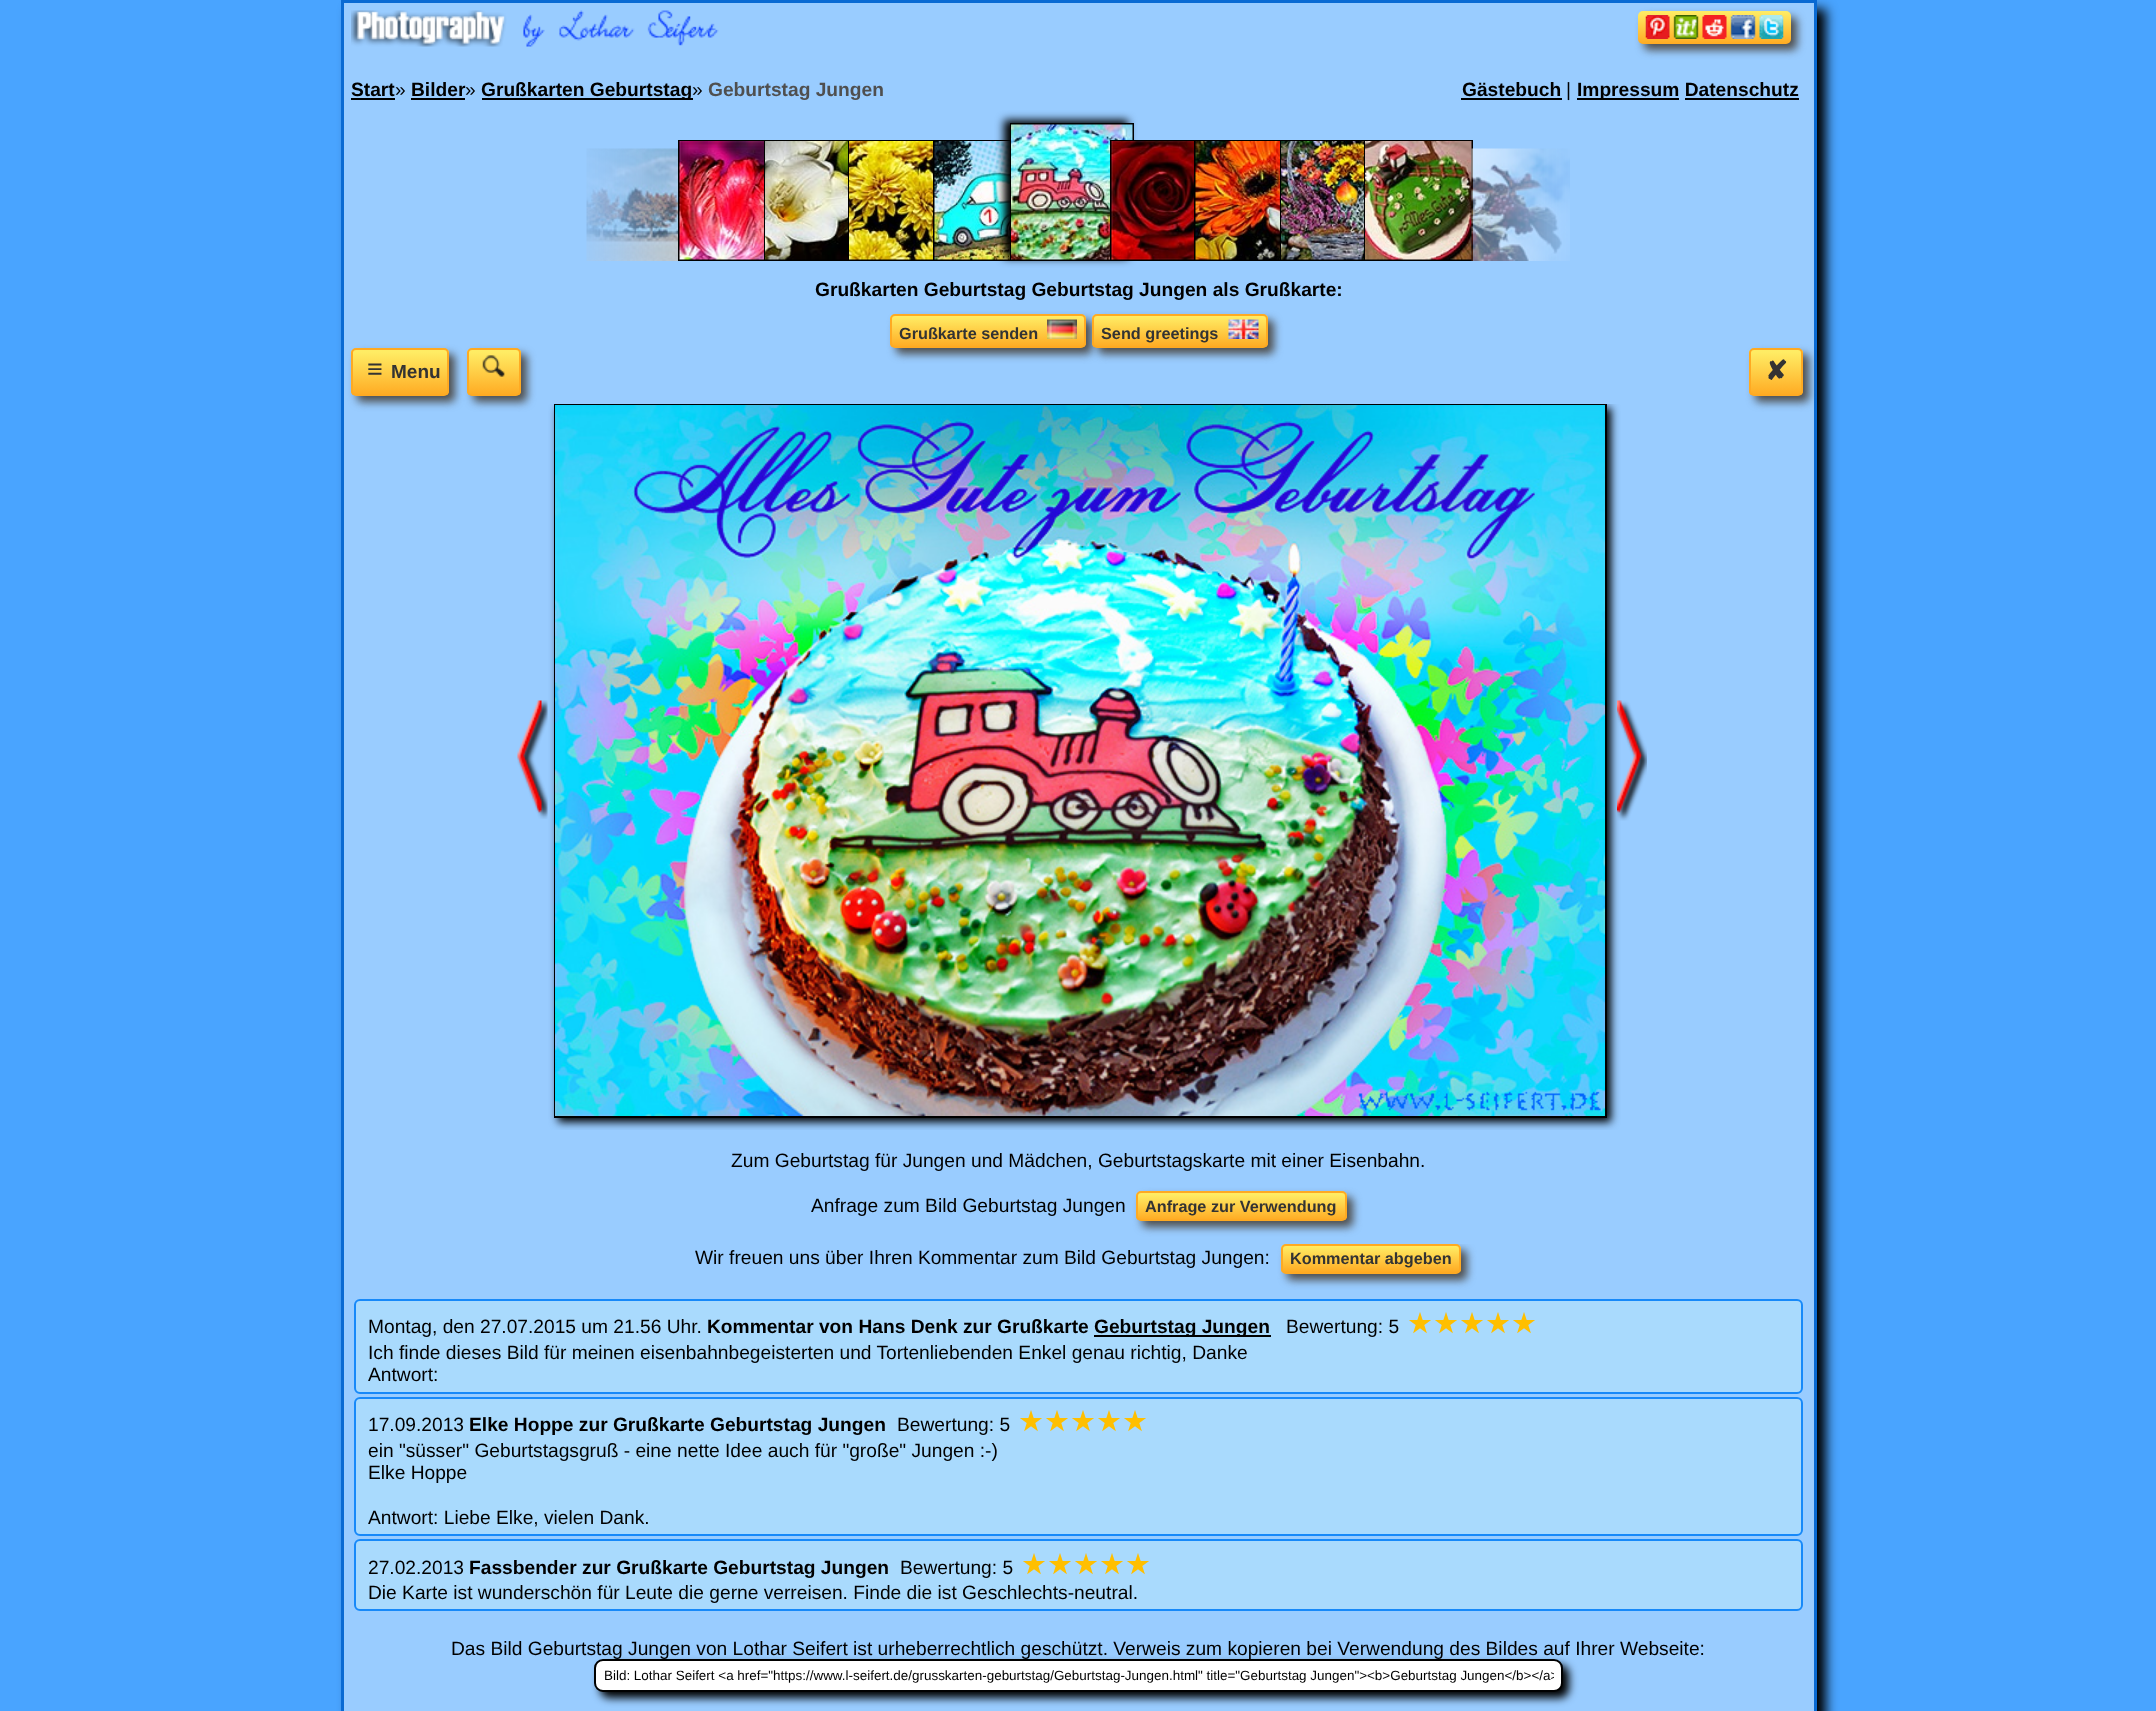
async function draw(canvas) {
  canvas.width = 2156
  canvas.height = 1711
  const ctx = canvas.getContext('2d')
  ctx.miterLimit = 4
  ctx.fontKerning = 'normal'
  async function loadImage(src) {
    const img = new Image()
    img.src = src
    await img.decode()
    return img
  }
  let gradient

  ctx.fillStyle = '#49a4ff'
  ctx.fillRect(0, 0, 2156, 1711)
  ctx.fillStyle = '#000'
  ctx.filter = 'blur(6px)'
  ctx.beginPath()
  ctx.rect(350, 9, 1476, 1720)
  ctx.fill()
  ctx.filter = 'none'
  ctx.fillStyle = '#9cf'
  ctx.beginPath()
  ctx.rect(342.5, 1.5, 1473, 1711)
  ctx.fill()
  ctx.strokeStyle = '#096ad3'
  ctx.lineWidth = 3
  ctx.stroke()
  ctx.drawImage(await loadImage('image0.png'), 351, 10, 368, 37)
  ctx.fillStyle = '#4f4f4f'
  ctx.filter = 'blur(4.5px)'
  ctx.beginPath()
  ctx.roundRect(1644, 17, 153, 33, 5)
  ctx.fill()
  ctx.filter = 'none'
  gradient = ctx.createLinearGradient(1715, 10, 1715, 44)
  gradient.addColorStop(0.05, '#ffec64')
  gradient.addColorStop(1, '#ffab23')
  ctx.fillStyle = gradient
  ctx.beginPath()
  ctx.roundRect(1638, 11, 153, 33, 5)
  ctx.fill()
  ctx.drawImage(await loadImage('image1.png'), 1645, 15, 139, 24)
  ctx.font = 'bold 19.2px Liberation Sans'
  ctx.fillStyle = '#000'
  ctx.fillText('Start', 351, 96)
  ctx.font = '19.2px Liberation Sans'
  ctx.fillText('»', 395, 96)
  ctx.fillRect(351, 98, 44, 2)
  ctx.font = 'bold 19.2px Liberation Sans'
  ctx.fillText('Bilder', 411, 96)
  ctx.font = '19.2px Liberation Sans'
  ctx.fillText('»', 465, 96)
  ctx.fillRect(411, 98, 54, 2)
  ctx.fillRect(482, 98, 211, 2)
  ctx.font = 'bold 19.2px Liberation Sans'
  ctx.fillText('Grußkarten Geburtstag', 481, 96)
  ctx.font = '19.2px Liberation Sans'
  ctx.fillText('»', 692, 96)
  ctx.font = 'bold 19.2px Liberation Sans'
  ctx.fillStyle = '#4f4f4f'
  ctx.fillText('Geburtstag Jungen', 708, 96)
  ctx.fillStyle = '#000'
  ctx.fillText('Gästebuch', 1462, 96)
  ctx.fillRect(1461, 98, 101, 2)
  ctx.font = '19.2px Liberation Sans'
  ctx.fillText('|', 1566, 96)
  ctx.fillRect(1577, 98, 102, 2)
  ctx.font = 'bold 19.2px Liberation Sans'
  ctx.fillText('Impressum Datenschutz', 1577, 96)
  ctx.fillRect(1685, 98, 114, 2)
  ctx.strokeStyle = '#000'
  ctx.lineWidth = 2
  ctx.strokeRect(679, 141, 108, 119)
  ctx.strokeRect(765, 141, 107, 119)
  ctx.strokeRect(849, 141, 107, 119)
  ctx.strokeRect(934, 141, 108, 119)
  ctx.drawImage(await loadImage('image7.png'), 934, 141, 76, 119)
  ctx.filter = 'blur(4.5px)'
  ctx.beginPath()
  ctx.rect(1004, 120, 124, 138)
  ctx.fill()
  ctx.filter = 'none'
  ctx.strokeRect(1011, 124, 122, 136)
  ctx.drawImage(await loadImage('image2.png'), 1011, 124, 122, 136)
  ctx.strokeRect(1111, 141, 108, 119)
  ctx.strokeRect(1195, 141, 108, 119)
  ctx.strokeRect(1281, 141, 107, 119)
  ctx.strokeRect(1365, 141, 107, 119)
  ctx.drawImage(await loadImage('image3.png'), 586, 148, 92, 113)
  ctx.drawImage(await loadImage('image4.png'), 679, 141, 85, 119)
  ctx.drawImage(await loadImage('image5.png'), 765, 141, 83, 119)
  ctx.drawImage(await loadImage('image6.png'), 849, 141, 84, 119)
  ctx.drawImage(await loadImage('image8.png'), 1111, 141, 83, 119)
  ctx.drawImage(await loadImage('image9.png'), 1195, 141, 85, 119)
  ctx.drawImage(await loadImage('image10.png'), 1281, 141, 83, 119)
  ctx.drawImage(await loadImage('image11.png'), 1365, 141, 107, 119)
  ctx.drawImage(await loadImage('image12.png'), 1471, 148, 99, 113)
  ctx.fillText('Grußkarten Geburtstag Geburtstag Jungen als Grußkarte:', 815, 296)
  ctx.fillStyle = '#4f4f4f'
  ctx.filter = 'blur(4.5px)'
  ctx.beginPath()
  ctx.roundRect(896, 320, 196, 34, 5)
  ctx.fill()
  ctx.filter = 'none'
  ctx.save()
  ctx.beginPath()
  ctx.roundRect(890, 314, 196, 34, 5)
  ctx.clip()
  gradient = ctx.createLinearGradient(988, 315, 988, 347)
  gradient.addColorStop(0.05, '#ffec64')
  gradient.addColorStop(1, '#ffab23')
  ctx.fillStyle = gradient
  ctx.fillRect(890, 315, 196, 32)
  ctx.restore()
  ctx.beginPath()
  ctx.roundRect(891, 315, 194, 32, 4)
  ctx.strokeStyle = '#fa2'
  ctx.stroke()
  ctx.font = 'bold 16.25px Liberation Sans'
  ctx.fillStyle = '#333'
  ctx.fillText('Grußkarte senden', 899, 339)
  ctx.drawImage(await loadImage('image13.png'), 1047, 319, 30, 20)
  ctx.fillStyle = '#4f4f4f'
  ctx.filter = 'blur(4.5px)'
  ctx.beginPath()
  ctx.roundRect(1098, 320, 176, 34, 5)
  ctx.fill()
  ctx.filter = 'none'
  ctx.save()
  ctx.beginPath()
  ctx.roundRect(1092, 314, 176, 34, 5)
  ctx.clip()
  gradient = ctx.createLinearGradient(1180, 315, 1180, 347)
  gradient.addColorStop(0.05, '#ffec64')
  gradient.addColorStop(1, '#ffab23')
  ctx.fillStyle = gradient
  ctx.fillRect(1092, 315, 176, 32)
  ctx.restore()
  ctx.beginPath()
  ctx.roundRect(1093, 315, 174, 32, 4)
  ctx.stroke()
  ctx.fillStyle = '#333'
  ctx.fillText('Send greetings', 1101, 339)
  ctx.drawImage(await loadImage('image14.png'), 1228, 319, 31, 20)
  ctx.fillStyle = '#4f4f4f'
  ctx.filter = 'blur(4.5px)'
  ctx.beginPath()
  ctx.roundRect(357, 354, 98, 48, 5)
  ctx.fill()
  ctx.filter = 'none'
  ctx.save()
  ctx.beginPath()
  ctx.roundRect(351, 348, 98, 48, 5)
  ctx.clip()
  gradient = ctx.createLinearGradient(400, 350, 400, 395)
  gradient.addColorStop(0.05, '#ffec64')
  gradient.addColorStop(1, '#ffab23')
  ctx.fillStyle = gradient
  ctx.fillRect(351, 350, 98, 45)
  ctx.restore()
  ctx.beginPath()
  ctx.roundRect(352, 349, 96, 46, 4)
  ctx.stroke()
  ctx.font = 'bold 27px Liberation Sans'
  ctx.fillStyle = '#333'
  ctx.fillText('≡', 367, 378)
  ctx.font = 'bold 19px Liberation Sans'
  ctx.fillText('Menu', 391, 378)
  ctx.fillStyle = '#4f4f4f'
  ctx.filter = 'blur(4.5px)'
  ctx.beginPath()
  ctx.roundRect(473, 354, 54, 48, 5)
  ctx.fill()
  ctx.filter = 'none'
  ctx.save()
  ctx.beginPath()
  ctx.roundRect(467, 348, 54, 48, 5)
  ctx.clip()
  gradient = ctx.createLinearGradient(494, 350, 494, 395)
  gradient.addColorStop(0.05, '#ffec64')
  gradient.addColorStop(1, '#ffab23')
  ctx.fillStyle = gradient
  ctx.fillRect(467, 350, 54, 45)
  ctx.restore()
  ctx.beginPath()
  ctx.roundRect(468, 349, 52, 46, 4)
  ctx.stroke()
  ctx.drawImage(await loadImage('image15.png'), 482, 355, 23, 22)
  ctx.filter = 'blur(4.5px)'
  ctx.beginPath()
  ctx.roundRect(1755, 354, 54, 48, 5)
  ctx.fill()
  ctx.filter = 'none'
  ctx.save()
  ctx.beginPath()
  ctx.roundRect(1749, 348, 54, 48, 5)
  ctx.clip()
  gradient = ctx.createLinearGradient(1776, 350, 1776, 395)
  gradient.addColorStop(0.05, '#ffec64')
  gradient.addColorStop(1, '#ffab23')
  ctx.fillStyle = gradient
  ctx.fillRect(1749, 350, 54, 45)
  ctx.restore()
  ctx.beginPath()
  ctx.roundRect(1750, 349, 52, 46, 4)
  ctx.stroke()
  ctx.font = 'bold 27px DejaVu Sans'
  ctx.fillStyle = '#333'
  ctx.fillText('✘', 1765, 380)
  ctx.drawImage(await loadImage('image16.png'), 517, 700, 31, 119)
  ctx.save()
  ctx.beginPath()
  ctx.rect(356, 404, 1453, 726)
  ctx.clip()
  ctx.fillStyle = '#000'
  ctx.filter = 'blur(4px)'
  ctx.beginPath()
  ctx.rect(558, 408, 1053, 714)
  ctx.fill()
  ctx.filter = 'none'
  ctx.restore()
  ctx.strokeStyle = '#000'
  ctx.strokeRect(555, 405, 1051, 712)
  ctx.drawImage(await loadImage('image17.png'), 555, 405, 1050, 711)
  ctx.drawImage(await loadImage('image18.png'), 1617, 700, 30, 121)
  ctx.font = '19.2px Liberation Sans'
  ctx.fillStyle = '#000'
  ctx.fillText('Zum Geburtstag für Jungen und Mädchen, Geburtstagskarte mit einer Eisenbahn.', 731, 1167)
  ctx.fillText('Anfrage zum Bild Geburtstag Jungen', 811, 1212)
  ctx.fillStyle = '#4f4f4f'
  ctx.filter = 'blur(4.5px)'
  ctx.beginPath()
  ctx.roundRect(1142, 1197, 211, 30, 5)
  ctx.fill()
  ctx.filter = 'none'
  ctx.save()
  ctx.beginPath()
  ctx.roundRect(1136, 1191, 211, 30, 5)
  ctx.clip()
  gradient = ctx.createLinearGradient(1241, 1193, 1241, 1220)
  gradient.addColorStop(0.05, '#ffec64')
  gradient.addColorStop(1, '#ffab23')
  ctx.fillStyle = gradient
  ctx.fillRect(1136, 1193, 211, 27)
  ctx.restore()
  ctx.beginPath()
  ctx.roundRect(1137, 1192, 209, 28, 4)
  ctx.strokeStyle = '#fa2'
  ctx.stroke()
  ctx.font = 'bold 16.25px Liberation Sans'
  ctx.fillStyle = '#333'
  ctx.fillText('Anfrage zur Verwendung', 1145, 1212)
  ctx.font = '19.2px Liberation Sans'
  ctx.fillStyle = '#000'
  ctx.fillText('Wir freuen uns über Ihren Kommentar zum Bild Geburtstag Jungen:', 695, 1264)
  ctx.save()
  ctx.beginPath()
  ctx.rect(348, 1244, 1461, 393)
  ctx.clip()
  ctx.fillStyle = '#4f4f4f'
  ctx.filter = 'blur(4.5px)'
  ctx.beginPath()
  ctx.roundRect(1287, 1250, 180, 30, 5)
  ctx.fill()
  ctx.filter = 'none'
  ctx.restore()
  ctx.save()
  ctx.beginPath()
  ctx.roundRect(1281, 1244, 180, 30, 5)
  ctx.clip()
  gradient = ctx.createLinearGradient(1371, 1245, 1371, 1272)
  gradient.addColorStop(0.05, '#ffec64')
  gradient.addColorStop(1, '#ffab23')
  ctx.fillStyle = gradient
  ctx.fillRect(1281, 1245, 180, 27)
  ctx.restore()
  ctx.beginPath()
  ctx.roundRect(1282, 1245, 178, 28, 4)
  ctx.stroke()
  ctx.font = 'bold 16.25px Liberation Sans'
  ctx.fillStyle = '#333'
  ctx.fillText('Kommentar abgeben', 1290, 1264)
  ctx.fillStyle = '#a9dafd'
  ctx.beginPath()
  ctx.roundRect(355, 1300, 1447, 93, 5)
  ctx.fill()
  ctx.strokeStyle = '#1789f9'
  ctx.stroke()
  ctx.font = '19.2px Liberation Sans'
  ctx.fillStyle = '#000'
  ctx.fillText('Montag, den 27.07.2015 um 21.56 Uhr.', 368, 1333)
  ctx.font = 'bold 19.2px Liberation Sans'
  ctx.fillText('Kommentar von Hans Denk zur Grußkarte', 707, 1333)
  ctx.fillRect(1094, 1335, 177, 2)
  ctx.fillText('Geburtstag Jungen', 1094, 1333)
  ctx.font = '19.2px Liberation Sans'
  ctx.fillText('Bewertung: 5', 1286, 1333)
  ctx.font = '29px DejaVu Sans'
  ctx.fillStyle = '#ffbf00'
  ctx.fillText('★★★★★', 1407, 1333)
  ctx.font = '19.2px Liberation Sans'
  ctx.fillStyle = '#000'
  ctx.fillText('Ich finde dieses Bild für meinen eisenbahnbegeisterten und Tortenliebenden Enkel genau richtig, Danke', 368, 1359)
  ctx.fillText('Antwort:', 368, 1381)
  ctx.fillStyle = '#a9dafd'
  ctx.beginPath()
  ctx.roundRect(355, 1398, 1447, 137, 5)
  ctx.fill()
  ctx.stroke()
  ctx.fillStyle = '#000'
  ctx.fillText('17.09.2013', 368, 1431)
  ctx.font = 'bold 19.2px Liberation Sans'
  ctx.fillText('Elke Hoppe zur Grußkarte Geburtstag Jungen', 469, 1431)
  ctx.font = '19.2px Liberation Sans'
  ctx.fillText('Bewertung: 5', 897, 1431)
  ctx.font = '29px DejaVu Sans'
  ctx.fillStyle = '#ffbf00'
  ctx.fillText('★★★★★', 1018, 1431)
  ctx.font = '19.2px Liberation Sans'
  ctx.fillStyle = '#000'
  ctx.fillText('ein "süsser" Geburtstagsgruß - eine nette Idee auch für "große" Jungen :-)', 368, 1457)
  ctx.fillText('Elke Hoppe', 368, 1479)
  ctx.fillText('Antwort: Liebe Elke, vielen Dank.', 368, 1524)
  ctx.fillStyle = '#a9dafd'
  ctx.beginPath()
  ctx.roundRect(355, 1540, 1447, 70, 5)
  ctx.fill()
  ctx.stroke()
  ctx.fillStyle = '#000'
  ctx.fillText('27.02.2013', 368, 1574)
  ctx.font = 'bold 19.2px Liberation Sans'
  ctx.fillText('Fassbender zur Grußkarte Geburtstag Jungen', 469, 1574)
  ctx.font = '19.2px Liberation Sans'
  ctx.fillText('Bewertung: 5', 900, 1574)
  ctx.font = '29px DejaVu Sans'
  ctx.fillStyle = '#ffbf00'
  ctx.fillText('★★★★★', 1021, 1574)
  ctx.font = '19.2px Liberation Sans'
  ctx.fillStyle = '#000'
  ctx.fillText('Die Karte ist wunderschön für Leute die gerne verreisen. Finde die ist Geschlechts-neutral.', 368, 1599)
  ctx.fillText('Das Bild Geburtstag Jungen von Lothar Seifert ist urheberrechtlich geschützt. Verweis zum kopieren bei Verwendung des Bildes auf Ihrer Webseite:', 451, 1655)
  ctx.filter = 'blur(4.5px)'
  ctx.beginPath()
  ctx.roundRect(600, 1665, 969, 33, 9)
  ctx.fill()
  ctx.filter = 'none'
  ctx.fillStyle = '#fff'
  ctx.beginPath()
  ctx.roundRect(595, 1660, 967, 31, 8)
  ctx.fill()
  ctx.strokeStyle = '#000'
  ctx.stroke()
  ctx.save()
  ctx.beginPath()
  ctx.rect(603, 1668, 951, 15)
  ctx.clip()
  ctx.font = '13.45px Liberation Sans'
  ctx.fillStyle = '#000'
  ctx.fillText('Bild: Lothar Seifert <a href="https://www.l-seifert.de/grusskarten-geburtstag/Geburtstag-Jungen.html" title="Geburtstag Jungen"><b>Geburtstag Jungen<\/b><\/a>', 604, 1680)
  ctx.restore()
}

draw(document.querySelector('canvas'))
